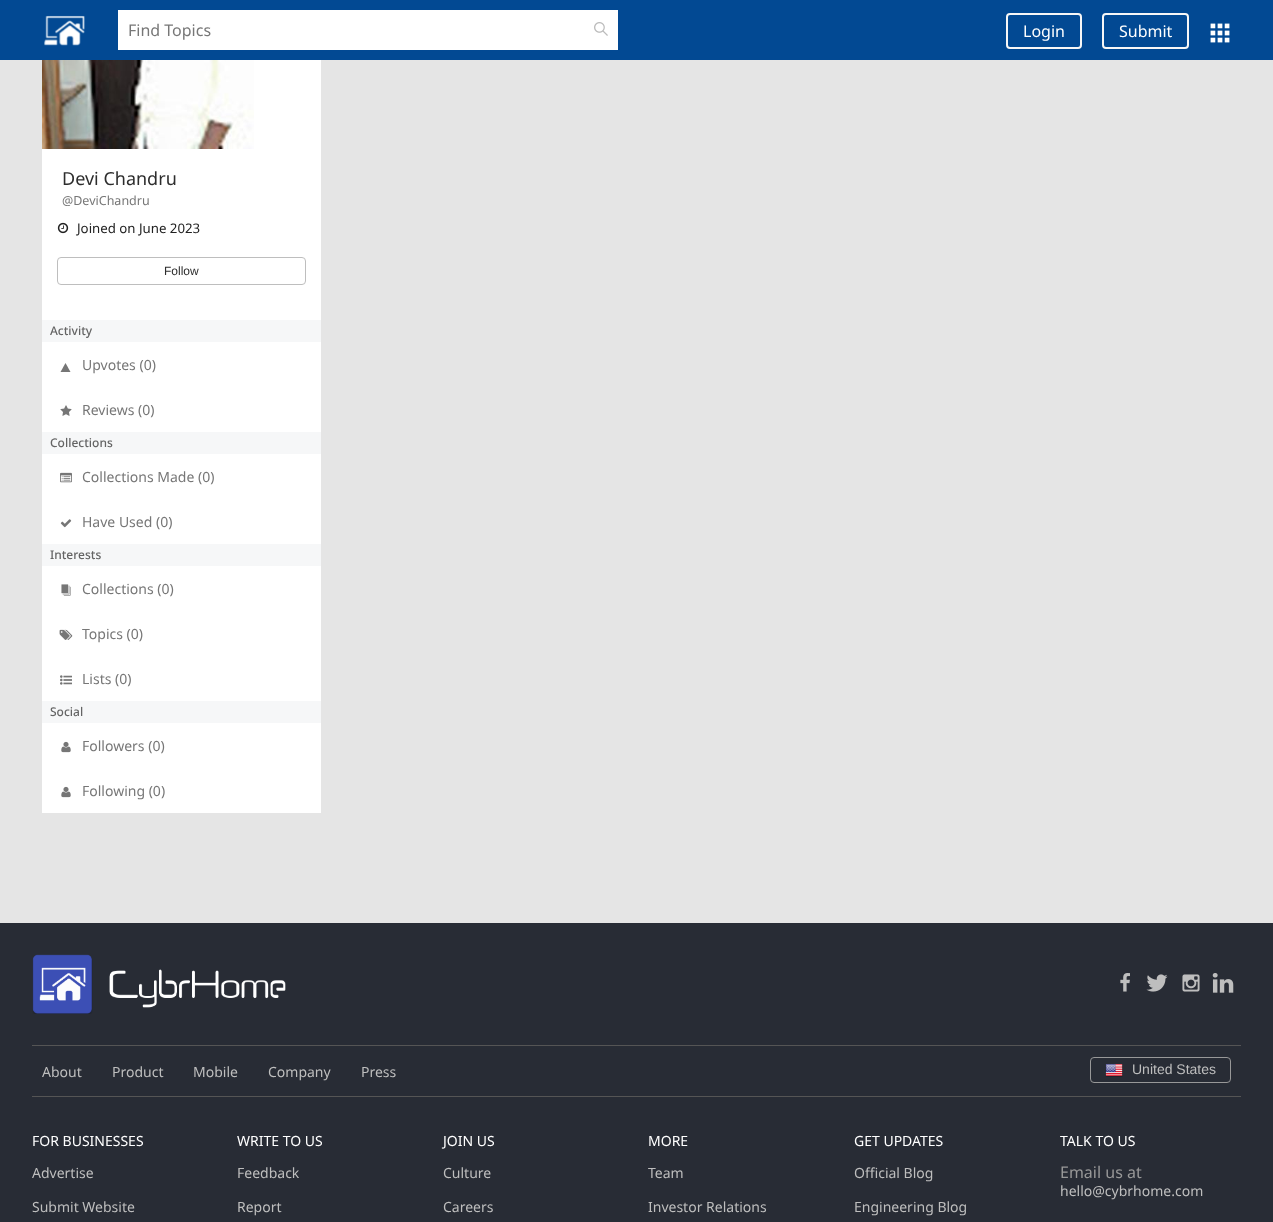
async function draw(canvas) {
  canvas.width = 1273
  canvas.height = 1222
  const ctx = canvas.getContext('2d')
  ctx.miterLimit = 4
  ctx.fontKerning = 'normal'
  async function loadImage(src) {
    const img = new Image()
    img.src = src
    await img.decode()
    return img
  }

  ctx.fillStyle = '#e5e5e5'
  ctx.fillRect(0, 0, 1273, 1222)
  ctx.fillStyle = '#024993'
  ctx.fillRect(0, 0, 1273, 60)
  ctx.drawImage(await loadImage('image0.png'), 44, 15, 41, 31)
  ctx.fillStyle = '#fff'
  ctx.fillRect(118, 10, 500, 40)
  ctx.font = '16px Noto Sans'
  ctx.fillStyle = '#777'
  ctx.fillText('Find Topics', 128, 36)
  ctx.drawImage(await loadImage('image1.png'), 594, 22, 14, 14)
  ctx.beginPath()
  ctx.roundRect(1007, 14, 74, 34, 3)
  ctx.strokeStyle = '#f7f7f7'
  ctx.lineWidth = 2
  ctx.stroke()
  ctx.fillStyle = '#fff'
  ctx.fillText('Login', 1023, 37)
  ctx.beginPath()
  ctx.roundRect(1103, 14, 85, 34, 3)
  ctx.stroke()
  ctx.fillText('Submit', 1119, 37)
  ctx.drawImage(await loadImage('image2.png'), 1210, 23, 20, 20)
  ctx.fillRect(42, 60, 279, 753)
  ctx.drawImage(await loadImage('image3.png'), 42, 60, 212, 89)
  ctx.font = '18px Noto Sans'
  ctx.fillStyle = '#2d2d2d'
  ctx.fillText('Devi Chandru', 62, 185)
  ctx.font = '12.5px Noto Sans'
  ctx.fillStyle = '#777'
  ctx.fillText('@DeviChandru', 62, 205)
  ctx.drawImage(await loadImage('image4.png'), 57, 222, 12, 12)
  ctx.font = '13.25px Noto Sans'
  ctx.fillStyle = '#212121'
  ctx.fillText('Joined on June 2023', 77, 233)
  ctx.beginPath()
  ctx.roundRect(57.5, 257.5, 248, 27, 3.5)
  ctx.strokeStyle = '#bebebe'
  ctx.lineWidth = 1
  ctx.stroke()
  ctx.font = '12px Liberation Sans'
  ctx.fillStyle = '#2d2d2d'
  ctx.fillText('Follow', 164, 275)
  ctx.fillStyle = '#f6f7f8'
  ctx.fillRect(42, 320, 279, 22)
  ctx.font = '500 12px Noto Sans'
  ctx.fillStyle = '#646464'
  ctx.fillText('Activity', 50, 335)
  ctx.fillStyle = '#767676'
  ctx.beginPath()
  ctx.moveTo(65.5, 363)
  ctx.lineTo(60.5, 372)
  ctx.lineTo(70.5, 372)
  ctx.closePath()
  ctx.fill()
  ctx.font = '14px Noto Sans'
  ctx.fillStyle = '#777'
  ctx.fillText('Upvotes (0)', 82, 370)
  ctx.drawImage(await loadImage('image5.png'), 60, 405, 12, 11)
  ctx.fillText('Reviews (0)', 82, 415)
  ctx.fillStyle = '#f6f7f8'
  ctx.fillRect(42, 432, 279, 22)
  ctx.font = '500 12px Noto Sans'
  ctx.fillStyle = '#646464'
  ctx.fillText('Collections', 50, 447)
  ctx.drawImage(await loadImage('image6.png'), 60, 472, 12, 11)
  ctx.font = '14px Noto Sans'
  ctx.fillStyle = '#777'
  ctx.fillText('Collections Made (0)', 82, 482)
  ctx.drawImage(await loadImage('image7.png'), 60, 519, 12, 9)
  ctx.fillText('Have Used (0)', 82, 527)
  ctx.fillStyle = '#f6f7f8'
  ctx.fillRect(42, 544, 279, 22)
  ctx.font = '500 12px Noto Sans'
  ctx.fillStyle = '#646464'
  ctx.fillText('Interests', 50, 559)
  ctx.drawImage(await loadImage('image8.png'), 61, 584, 10, 12)
  ctx.font = '14px Noto Sans'
  ctx.fillStyle = '#777'
  ctx.fillText('Collections (0)', 82, 594)
  ctx.drawImage(await loadImage('image9.png'), 59, 629, 14, 11)
  ctx.fillText('Topics (0)', 82, 639)
  ctx.drawImage(await loadImage('image10.png'), 60, 675, 12, 10)
  ctx.fillText('Lists (0)', 82, 684)
  ctx.fillStyle = '#f6f7f8'
  ctx.fillRect(42, 701, 279, 22)
  ctx.font = '500 12px Noto Sans'
  ctx.fillStyle = '#646464'
  ctx.fillText('Social', 50, 716)
  ctx.drawImage(await loadImage('image11.png'), 61, 741, 10, 12)
  ctx.font = '14px Noto Sans'
  ctx.fillStyle = '#777'
  ctx.fillText('Followers (0)', 82, 751)
  ctx.drawImage(await loadImage('image11.png'), 61, 786, 10, 12)
  ctx.fillText('Following (0)', 82, 796)
  ctx.fillStyle = '#282c35'
  ctx.fillRect(0, 923, 1273, 299)
  ctx.drawImage(await loadImage('image12.png'), 32, 954, 254, 60)
  ctx.drawImage(await loadImage('image13.png'), 1120, 973, 10, 19)
  ctx.drawImage(await loadImage('image14.png'), 1146, 974, 22, 18)
  ctx.drawImage(await loadImage('image15.png'), 1182, 974, 18, 18)
  ctx.drawImage(await loadImage('image16.png'), 1212, 973, 22, 20)
  ctx.fillStyle = '#555'
  ctx.fillRect(32, 1045, 1209, 1)
  ctx.fillStyle = '#bebebe'
  ctx.fillText('About', 42, 1077)
  ctx.fillText('Product', 112, 1077)
  ctx.fillText('Mobile', 193, 1077)
  ctx.fillText('Company', 268, 1077)
  ctx.fillText('Press', 361, 1077)
  ctx.beginPath()
  ctx.roundRect(1090.5, 1057.5, 140, 25, 3.5)
  ctx.strokeStyle = '#989898'
  ctx.stroke()
  ctx.drawImage(await loadImage('image17.png'), 1105, 1064, 18, 13)
  ctx.font = '14px Liberation Sans'
  ctx.fillText('United States', 1132, 1074)
  ctx.fillStyle = '#555'
  ctx.fillRect(32, 1096, 1209, 1)
  ctx.font = '14px Noto Sans'
  ctx.fillStyle = '#fff'
  ctx.fillText('FOR BUSINESSES', 32, 1146)
  ctx.fillStyle = '#bebebe'
  ctx.fillText('Advertise', 32, 1178)
  ctx.fillText('Submit Website', 32, 1212)
  ctx.fillStyle = '#fff'
  ctx.fillText('WRITE TO US', 237, 1146)
  ctx.fillStyle = '#bebebe'
  ctx.fillText('Feedback', 237, 1178)
  ctx.fillText('Report', 237, 1212)
  ctx.fillStyle = '#fff'
  ctx.fillText('JOIN US', 443, 1146)
  ctx.fillStyle = '#bebebe'
  ctx.fillText('Culture', 443, 1178)
  ctx.fillText('Careers', 443, 1212)
  ctx.fillStyle = '#fff'
  ctx.fillText('MORE', 648, 1146)
  ctx.fillStyle = '#bebebe'
  ctx.fillText('Team', 648, 1178)
  ctx.fillText('Investor Relations', 648, 1212)
  ctx.fillStyle = '#fff'
  ctx.fillText('GET UPDATES', 854, 1146)
  ctx.fillStyle = '#bebebe'
  ctx.fillText('Official Blog', 854, 1178)
  ctx.fillText('Engineering Blog', 854, 1212)
  ctx.fillStyle = '#fff'
  ctx.fillText('TALK TO US', 1060, 1146)
  ctx.font = '16px Noto Sans'
  ctx.fillStyle = '#989898'
  ctx.fillText('Email us at', 1060, 1178)
  ctx.font = '14px Noto Sans'
  ctx.fillStyle = '#bebebe'
  ctx.fillText('hello@cybrhome.com', 1060, 1196)
}

draw(document.querySelector('canvas'))
